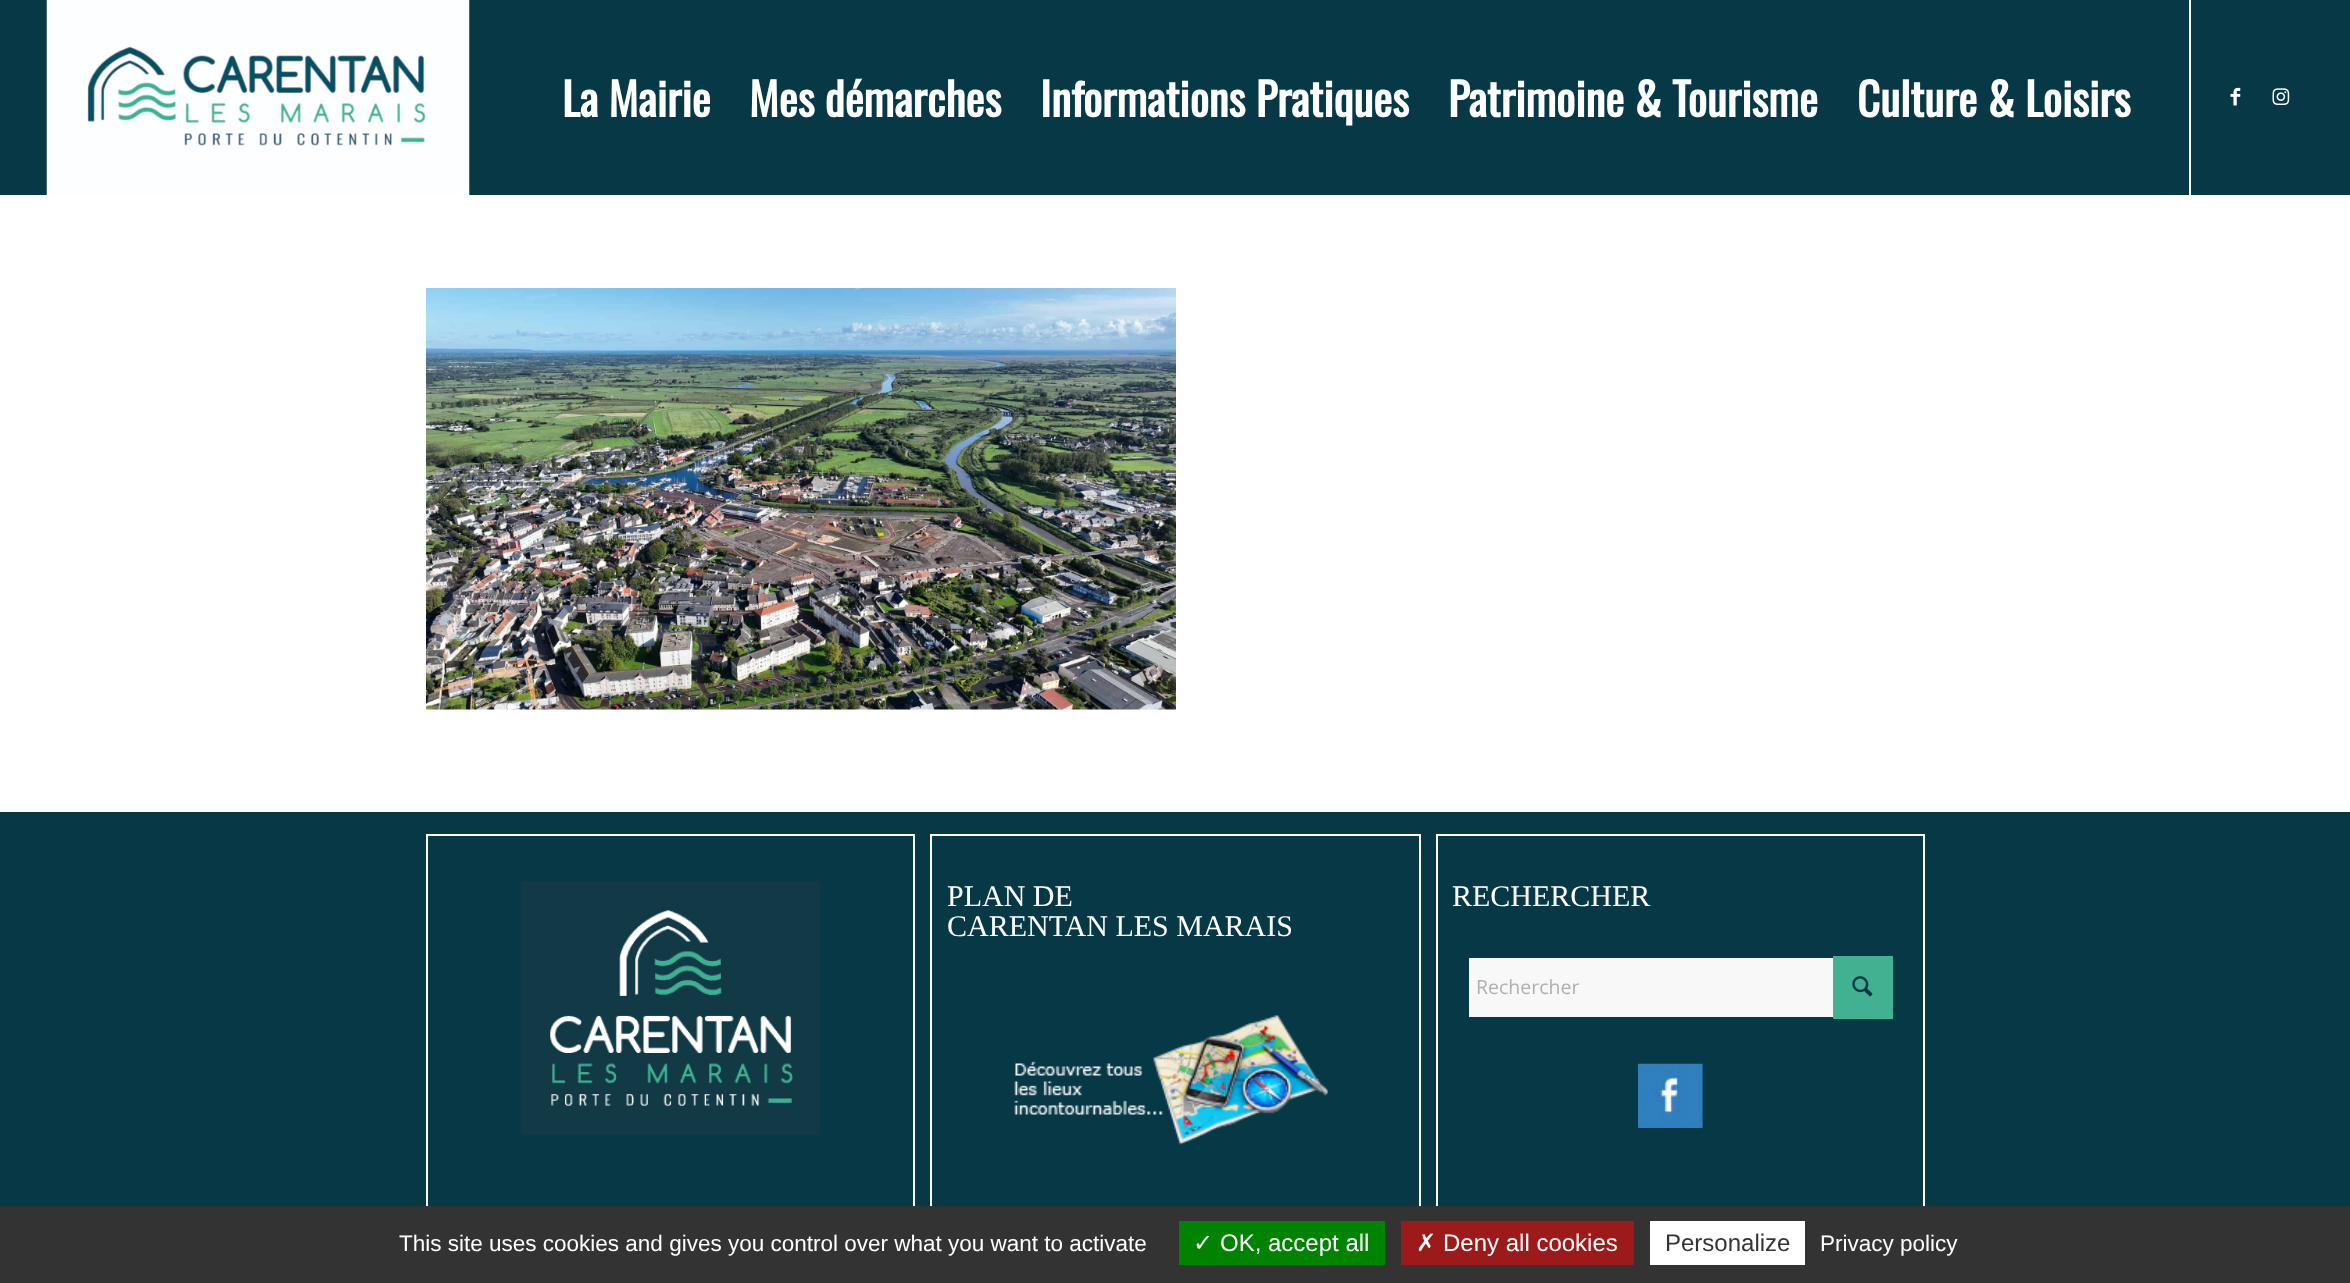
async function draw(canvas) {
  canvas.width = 2350
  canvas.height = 1283
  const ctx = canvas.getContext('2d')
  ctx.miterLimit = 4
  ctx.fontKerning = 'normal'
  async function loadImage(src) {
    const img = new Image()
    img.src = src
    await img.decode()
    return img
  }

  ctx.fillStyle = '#073845'
  ctx.fillRect(0, 0, 2350, 1283)
  ctx.drawImage(await loadImage('image0.png'), 46, 0, 424, 195)
  ctx.fillStyle = '#fff'
  ctx.fillRect(2189, 0, 2, 195)
  ctx.font = 'bold 45px Oswald'
  ctx.fillText('La Mairie', 562, 117)
  ctx.fillText('Mes démarches', 749, 117)
  ctx.fillText('Informations Pratiques', 1040, 117)
  ctx.fillText('Patrimoine & Tourisme', 1448, 117)
  ctx.fillText('Culture & Loisirs', 1857, 117)
  ctx.drawImage(await loadImage('image1.png'), 2230, 87, 11, 19)
  ctx.drawImage(await loadImage('image2.png'), 2272, 88, 18, 18)
  ctx.fillRect(0, 195, 2350, 617)
  ctx.drawImage(await loadImage('image3.png'), 426, 288, 750, 422)
  ctx.strokeStyle = '#fff'
  ctx.lineWidth = 2
  ctx.strokeRect(427, 835, 487, 373)
  ctx.drawImage(await loadImage('image4.png'), 520, 881, 301, 255)
  ctx.strokeRect(931, 835, 489, 373)
  ctx.font = '30px Liberation Serif'
  ctx.fillText('PLAN DE', 947, 906)
  ctx.fillText('CARENTAN LES MARAIS', 947, 936)
  ctx.drawImage(await loadImage('image5.png'), 1014, 1015, 314, 130)
  ctx.strokeRect(1437, 835, 487, 373)
  ctx.fillText('RECHERCHER', 1452, 906)
  ctx.fillStyle = '#42b191'
  ctx.fillRect(1833, 956, 60, 63)
  ctx.fillStyle = '#f8f8f8'
  ctx.fillRect(1469, 958, 364, 59)
  ctx.font = '19.5px Open Sans'
  ctx.fillStyle = '#afafaf'
  ctx.fillText('Rechercher', 1476, 994)
  ctx.drawImage(await loadImage('image6.png'), 1852, 976, 21, 21)
  ctx.drawImage(await loadImage('image7.png'), 1638, 1063, 65, 65)
  ctx.fillStyle = '#333'
  ctx.fillRect(0, 1206, 2350, 77)
  ctx.font = '22.5px Liberation Sans'
  ctx.fillStyle = '#fff'
  ctx.fillText('This site uses cookies and gives you control over what you want to activate', 399, 1251)
  ctx.fillStyle = '#008300'
  ctx.fillRect(1179, 1221, 206, 44)
  ctx.font = '24px DejaVu Sans'
  ctx.fillStyle = '#fff'
  ctx.fillText('✓', 1193, 1251)
  ctx.font = '24px Liberation Sans'
  ctx.fillText('OK, accept all', 1220, 1251)
  ctx.fillStyle = '#9c1a1a'
  ctx.fillRect(1401, 1221, 233, 44)
  ctx.font = '24px DejaVu Sans'
  ctx.fillStyle = '#fff'
  ctx.fillText('✗', 1416, 1251)
  ctx.font = '24px Liberation Sans'
  ctx.fillText('Deny all cookies', 1443, 1251)
  ctx.fillRect(1650, 1221, 155, 44)
  ctx.fillStyle = '#333'
  ctx.fillText('Personalize', 1665, 1251)
  ctx.font = '22.5px Liberation Sans'
  ctx.fillStyle = '#fff'
  ctx.fillText('Privacy policy', 1820, 1251)
}

draw(document.querySelector('canvas'))
